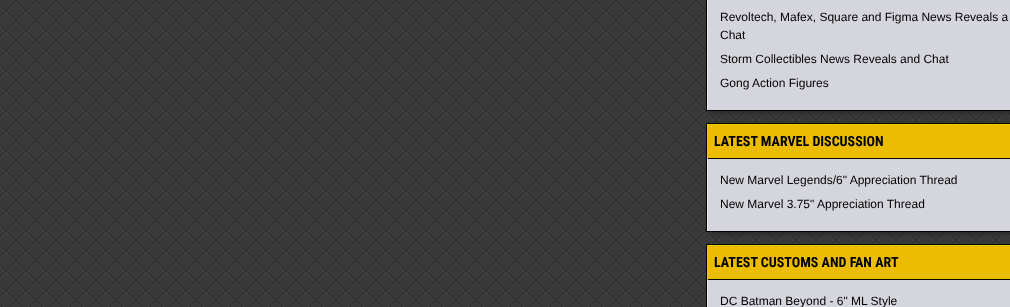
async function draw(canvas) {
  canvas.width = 1010
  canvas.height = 307
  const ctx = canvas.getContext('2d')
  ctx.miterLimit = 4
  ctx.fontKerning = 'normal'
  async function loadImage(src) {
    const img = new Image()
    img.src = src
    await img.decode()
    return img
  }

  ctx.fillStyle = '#fff'
  ctx.fillRect(0, 0, 1010, 307)
  ctx.drawImage(await loadImage('image0.png'), 0, 0, 1010, 307)
  ctx.fillStyle = '#29292b'
  ctx.filter = 'blur(2.5px)'
  ctx.beginPath()
  ctx.rect(710, -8, 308, 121)
  ctx.fill()
  ctx.filter = 'none'
  ctx.fillStyle = '#000'
  ctx.fillRect(706, 0, 304, 111)
  ctx.fillStyle = '#d5d5de'
  ctx.fillRect(707, 0, 303, 2)
  ctx.fillStyle = '#ededf7'
  ctx.fillRect(707, 0, 1, 110)
  ctx.fillStyle = '#d5d5de'
  ctx.fillRect(708, 2, 302, 108)
  ctx.font = '12px Liberation Sans'
  ctx.fillStyle = '#000'
  ctx.fillText('Revoltech, Mafex, Square and Figma News Reveals a', 720, 21)
  ctx.fillText('Chat', 720, 39)
  ctx.fillText('Storm Collectibles News Reveals and Chat', 720, 63)
  ctx.fillText('Gong Action Figures', 720, 87)
  ctx.fillStyle = '#29292b'
  ctx.filter = 'blur(2.5px)'
  ctx.beginPath()
  ctx.rect(710, 127, 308, 107)
  ctx.fill()
  ctx.filter = 'none'
  ctx.fillStyle = '#000'
  ctx.fillRect(706, 123, 304, 109)
  ctx.fillStyle = '#ebbc00'
  ctx.fillRect(708, 125, 302, 33)
  ctx.fillStyle = '#ebcb00'
  ctx.fillRect(707, 124, 303, 1)
  ctx.fillRect(707, 124, 1, 35)
  ctx.font = 'bold 14px Roboto Condensed'
  ctx.fillStyle = '#000'
  ctx.fillText('LATEST MARVEL DISCUSSION', 714, 146)
  ctx.fillStyle = '#d5d5de'
  ctx.fillRect(707, 159, 303, 6)
  ctx.fillStyle = '#ededf7'
  ctx.fillRect(707, 159, 1, 72)
  ctx.fillStyle = '#d5d5de'
  ctx.fillRect(708, 165, 302, 66)
  ctx.font = '12px Liberation Sans'
  ctx.fillStyle = '#000'
  ctx.fillText('New Marvel Legends/6" Appreciation Thread', 720, 184)
  ctx.fillText('New Marvel 3.75" Appreciation Thread', 720, 208)
  ctx.fillRect(706, 244, 304, 63)
  ctx.fillStyle = '#ebbc00'
  ctx.fillRect(708, 246, 302, 33)
  ctx.fillStyle = '#ebcb00'
  ctx.fillRect(707, 245, 303, 1)
  ctx.fillRect(707, 245, 1, 35)
  ctx.font = 'bold 14px Roboto Condensed'
  ctx.fillStyle = '#000'
  ctx.fillText('LATEST CUSTOMS AND FAN ART', 714, 267)
  ctx.fillStyle = '#d5d5de'
  ctx.fillRect(707, 280, 303, 6)
  ctx.fillStyle = '#ededf7'
  ctx.fillRect(707, 280, 1, 27)
  ctx.fillStyle = '#d5d5de'
  ctx.fillRect(708, 286, 302, 21)
  ctx.font = '12px Liberation Sans'
  ctx.fillStyle = '#000'
  ctx.fillText('DC Batman Beyond - 6" ML Style', 720, 305)
}

draw(document.querySelector('canvas'))
